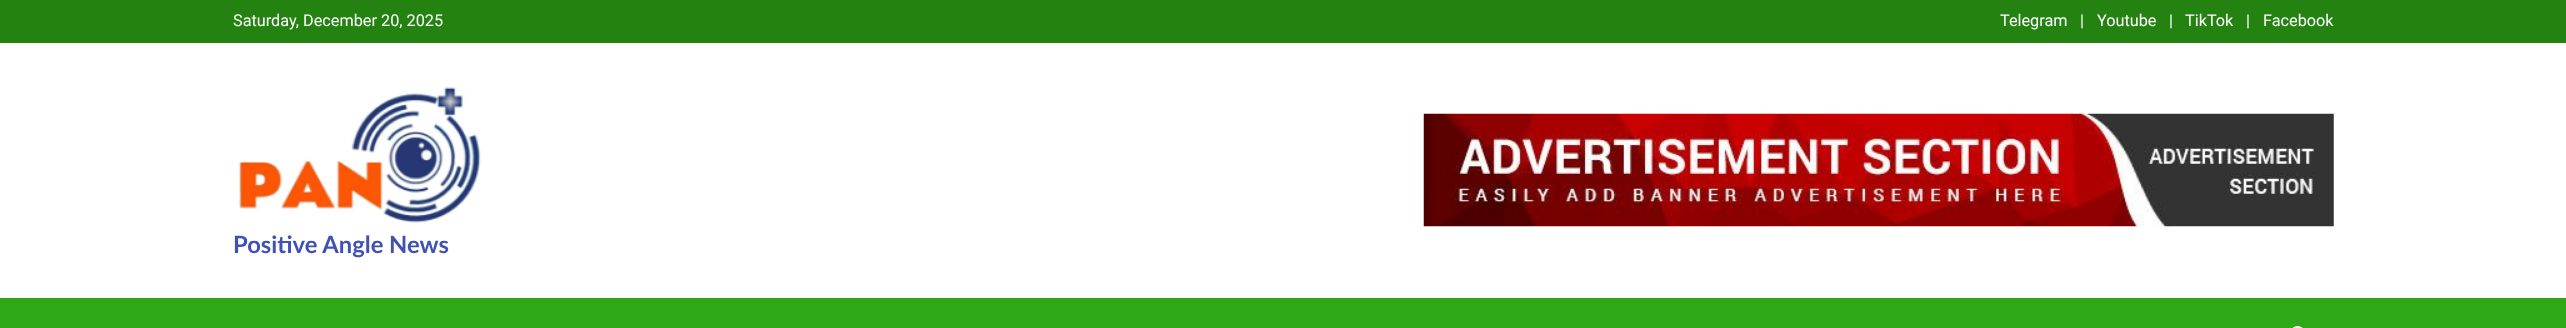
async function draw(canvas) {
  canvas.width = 2566
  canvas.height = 328
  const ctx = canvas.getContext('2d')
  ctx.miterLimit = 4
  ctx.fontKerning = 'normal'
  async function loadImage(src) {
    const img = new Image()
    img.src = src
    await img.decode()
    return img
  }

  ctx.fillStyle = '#248211'
  ctx.fillRect(0, 0, 2566, 328)
  ctx.font = '16.25px Roboto'
  ctx.fillStyle = '#fff'
  ctx.fillText('Saturday, December 20, 2025', 233, 26)
  ctx.fillText('Telegram', 2000, 26)
  ctx.fillText('|', 2080, 26)
  ctx.fillText('Youtube', 2097, 26)
  ctx.fillText('|', 2169, 26)
  ctx.fillText('TikTok', 2185, 26)
  ctx.fillText('|', 2246, 26)
  ctx.fillText('Facebook', 2263, 26)
  ctx.fillRect(0, 43, 2566, 255)
  ctx.drawImage(await loadImage('image0.png'), 1423, 113, 911, 114)
  ctx.drawImage(await loadImage('image1.png'), 238, 87, 243, 136)
  ctx.font = 'bold 23.75px Lato'
  ctx.fillStyle = '#3f51b5'
  ctx.fillText('Positive Angle News', 233, 253)
  ctx.fillStyle = '#2ea816'
  ctx.fillRect(0, 298, 2566, 30)
  ctx.drawImage(await loadImage('image2.png'), 2292, 326, 11, 2)
}

draw(document.querySelector('canvas'))
